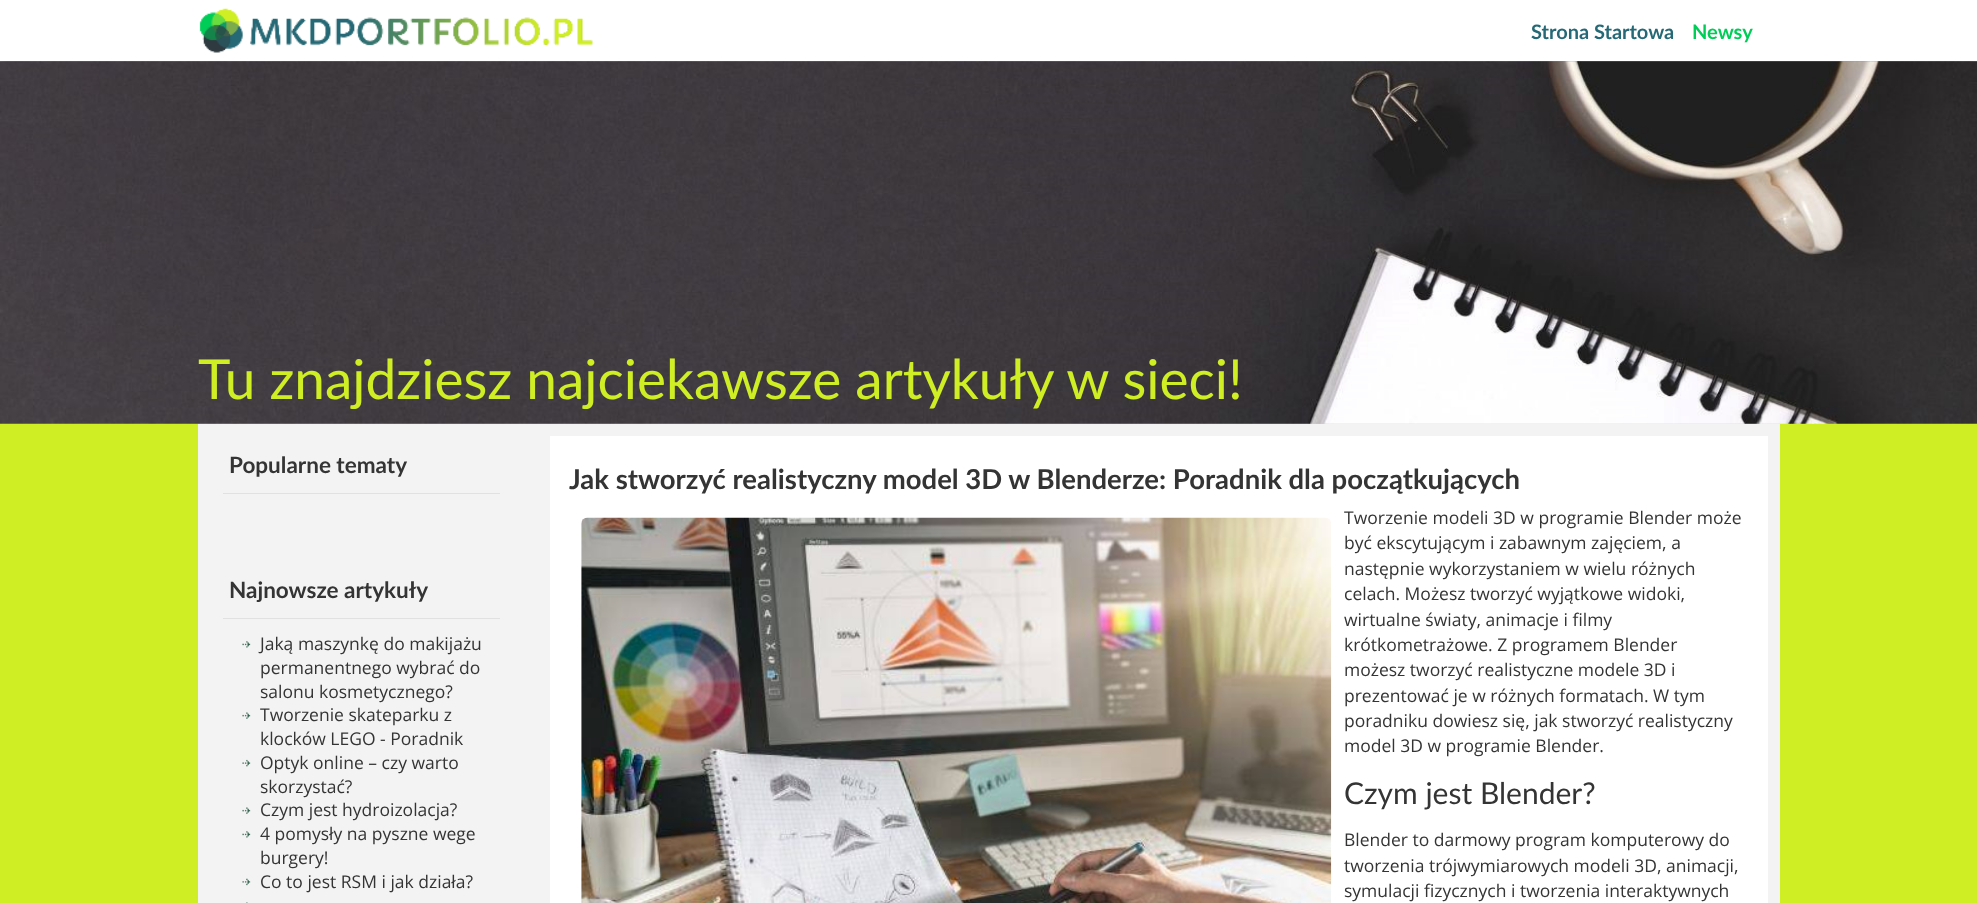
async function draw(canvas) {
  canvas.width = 1977
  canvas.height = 903
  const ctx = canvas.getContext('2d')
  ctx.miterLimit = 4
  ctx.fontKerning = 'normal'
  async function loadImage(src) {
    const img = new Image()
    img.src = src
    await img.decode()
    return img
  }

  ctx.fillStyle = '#d0ee24'
  ctx.fillRect(0, 0, 1977, 903)
  ctx.fillStyle = '#00000096'
  ctx.filter = 'blur(5px)'
  ctx.beginPath()
  ctx.rect(0, 0, 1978, 61)
  ctx.fill()
  ctx.filter = 'none'
  ctx.fillStyle = '#fff'
  ctx.fillRect(0, 0, 1977, 61)
  ctx.drawImage(await loadImage('image0.png'), 199, 8, 394, 45)
  ctx.font = 'bold 20px Lato'
  ctx.fillStyle = '#256976'
  ctx.fillText('Strona Startowa', 1531, 39)
  ctx.fillStyle = '#00cd57'
  ctx.fillText('Newsy', 1692, 39)
  ctx.drawImage(await loadImage('image1.png'), 0, 61, 1977, 363)
  ctx.font = '55px Lato'
  ctx.fillStyle = '#d0ee24'
  ctx.fillText('Tu znajdziesz najciekawsze artykuły w sieci!', 198, 399)
  ctx.fillStyle = '#f3f3f3'
  ctx.fillRect(198, 424, 1582, 479)
  ctx.fillStyle = '#e1e1e1'
  ctx.fillRect(223, 493, 277, 1)
  ctx.font = 'bold 22.5px Lato'
  ctx.fillStyle = '#343434'
  ctx.fillText('Popularne tematy', 229, 473)
  ctx.fillStyle = '#e1e1e1'
  ctx.fillRect(223, 618, 277, 1)
  ctx.fillStyle = '#343434'
  ctx.fillText('Najnowsze artykuły', 229, 598)
  ctx.drawImage(await loadImage('image2.png'), 242, 641, 9, 7)
  ctx.font = '17.5px Open Sans'
  ctx.fillText('Jaką maszynkę do makijażu', 260, 650)
  ctx.fillText('permanentnego wybrać do', 260, 674)
  ctx.fillText('salonu kosmetycznego?', 260, 698)
  ctx.drawImage(await loadImage('image3.png'), 242, 712, 9, 7)
  ctx.fillText('Tworzenie skateparku z', 260, 721)
  ctx.fillText('klocków LEGO - Poradnik', 260, 745)
  ctx.drawImage(await loadImage('image4.png'), 242, 759, 9, 8)
  ctx.fillText('Optyk online – czy warto', 260, 769)
  ctx.fillText('skorzystać?', 260, 793)
  ctx.drawImage(await loadImage('image3.png'), 242, 807, 9, 7)
  ctx.fillText('Czym jest hydroizolacja?', 260, 816)
  ctx.drawImage(await loadImage('image2.png'), 242, 831, 9, 7)
  ctx.fillText('4 pomysły na pyszne wege', 260, 840)
  ctx.fillText('burgery!', 260, 864)
  ctx.drawImage(await loadImage('image5.png'), 242, 878, 9, 8)
  ctx.fillText('Co to jest RSM i jak działa?', 260, 888)
  ctx.drawImage(await loadImage('image6.png'), 246, 902, 2, 1)
  ctx.fillStyle = '#fff'
  ctx.fillRect(550, 436, 1218, 467)
  ctx.font = 'bold 27.5px Lato'
  ctx.fillStyle = '#343434'
  ctx.fillText('Jak stworzyć realistyczny model 3D w Blenderze: Poradnik dla początkujących', 569, 489)
  ctx.drawImage(await loadImage('image7.png'), 581, 517, 751, 386)
  ctx.font = '17.5px Open Sans'
  ctx.fillText('Tworzenie modeli 3D w programie Blender może', 1344, 524)
  ctx.fillText('być ekscytującym i zabawnym zajęciem, a', 1344, 549)
  ctx.fillText('następnie wykorzystaniem w wielu różnych', 1344, 575)
  ctx.fillText('celach. Możesz tworzyć wyjątkowe widoki,', 1344, 600)
  ctx.fillText('wirtualne światy, animacje i filmy', 1344, 626)
  ctx.fillText('krótkometrażowe. Z programem Blender', 1344, 651)
  ctx.fillText('możesz tworzyć realistyczne modele 3D i', 1344, 676)
  ctx.fillText('prezentować je w różnych formatach. W tym', 1344, 702)
  ctx.fillText('poradniku dowiesz się, jak stworzyć realistyczny', 1344, 727)
  ctx.fillText('model 3D w programie Blender.', 1344, 752)
  ctx.font = '30px Lato'
  ctx.fillText('Czym jest Blender?', 1344, 804)
  ctx.font = '17.5px Open Sans'
  ctx.fillText('Blender to darmowy program komputerowy do', 1344, 846)
  ctx.fillText('tworzenia trójwymiarowych modeli 3D, animacji,', 1344, 872)
  ctx.fillText('symulacji fizycznych i tworzenia interaktywnych', 1344, 897)
}

draw(document.querySelector('canvas'))
